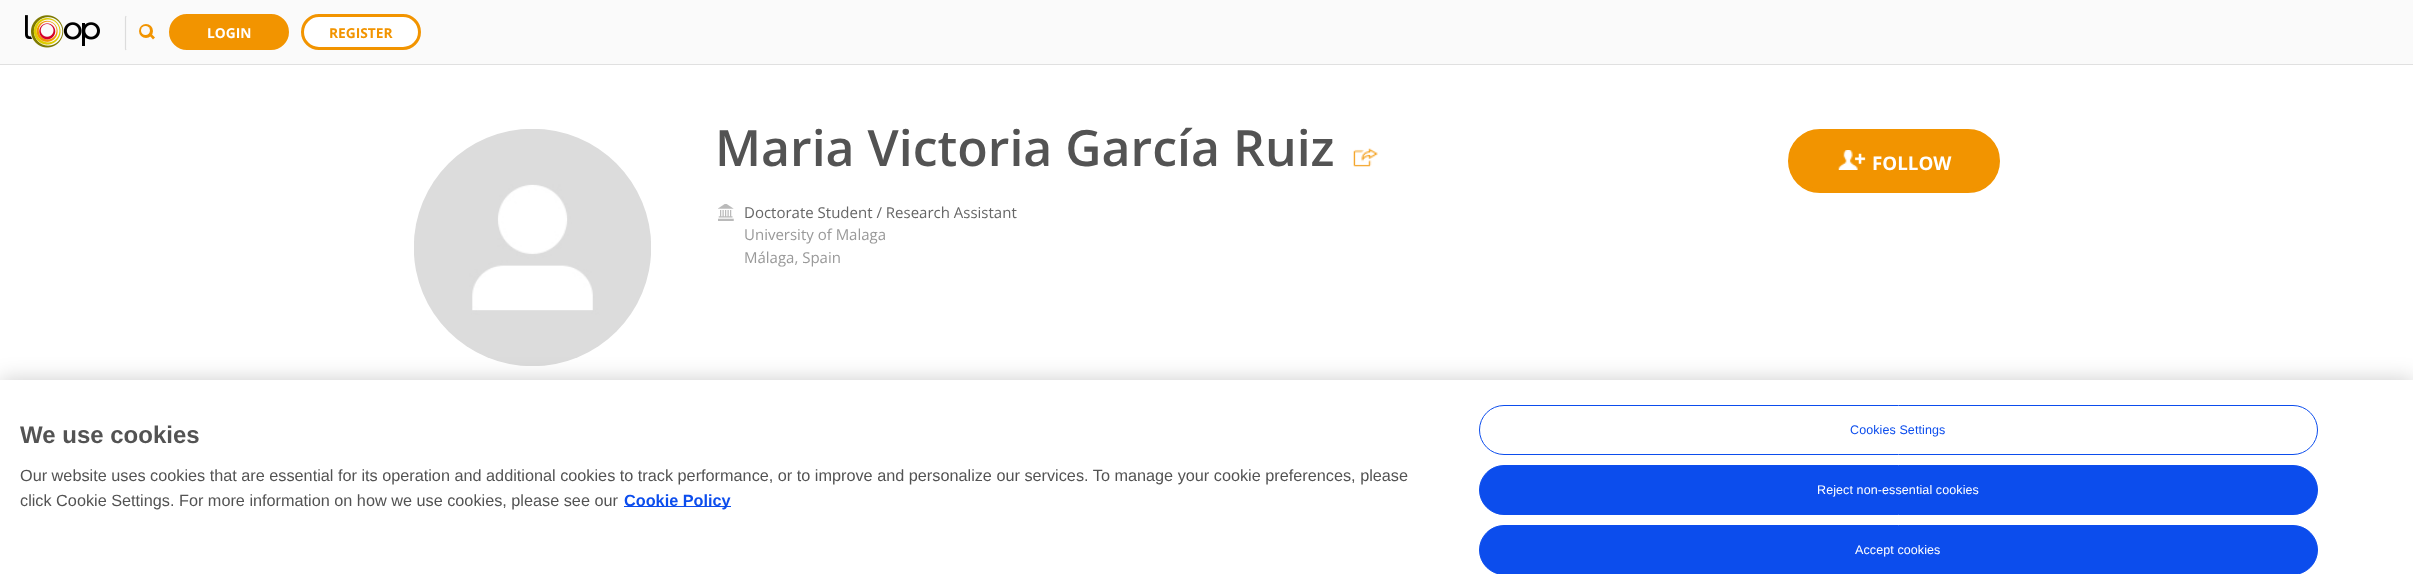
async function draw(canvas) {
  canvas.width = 2413
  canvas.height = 574
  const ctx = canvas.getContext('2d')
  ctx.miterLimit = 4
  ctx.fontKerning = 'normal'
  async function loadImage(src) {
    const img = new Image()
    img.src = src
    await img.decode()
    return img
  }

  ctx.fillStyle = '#fff'
  ctx.fillRect(0, 0, 2413, 574)
  ctx.fillStyle = '#fafafa'
  ctx.fillRect(0, 0, 2413, 64)
  ctx.fillStyle = '#e0e0e0'
  ctx.fillRect(0, 64, 2413, 1)
  ctx.drawImage(await loadImage('image0.png'), 25, 15, 75, 33)
  ctx.beginPath()
  ctx.moveTo(126, 50)
  ctx.lineTo(125.5, 49)
  ctx.lineTo(125.5, 17.5)
  ctx.lineTo(126, 16)
  ctx.strokeStyle = '#dcdcdc'
  ctx.lineWidth = 1.2
  ctx.stroke()
  ctx.fillStyle = '#f29400'
  ctx.beginPath()
  ctx.arc(146, 31, 7, 0, 2 * Math.PI)
  ctx.fill()
  ctx.fillStyle = '#f9f9f9'
  ctx.beginPath()
  ctx.arc(145.5, 30.5, 4.5, 0, 2 * Math.PI)
  ctx.fill()
  ctx.fillStyle = '#f29400'
  ctx.beginPath()
  ctx.moveTo(150.5, 33)
  ctx.lineTo(155, 37.5)
  ctx.lineTo(153, 39.5)
  ctx.lineTo(149, 35)
  ctx.closePath()
  ctx.fill()
  ctx.beginPath()
  ctx.roundRect(170.5, 15.5, 117, 33, 16.5)
  ctx.fill()
  ctx.strokeStyle = '#f29400'
  ctx.lineWidth = 3
  ctx.stroke()
  ctx.font = 'bold 13.75px Open Sans'
  ctx.fillStyle = '#fff'
  ctx.fillText('LOGIN', 207, 38)
  ctx.beginPath()
  ctx.roundRect(302.5, 15.5, 117, 33, 16.5)
  ctx.fill()
  ctx.stroke()
  ctx.fillStyle = '#f29400'
  ctx.fillText('REGISTER', 329, 38)
  ctx.drawImage(await loadImage('image1.png'), 414, 129, 237, 237)
  ctx.font = '600 50px Open Sans'
  ctx.fillStyle = '#535353'
  ctx.fillText('Maria Victoria García Ruiz', 715, 166)
  ctx.drawImage(await loadImage('image2.png'), 1353, 148, 25, 19)
  ctx.drawImage(await loadImage('image3.png'), 718, 204, 16, 17)
  ctx.font = '15px Open Sans'
  ctx.fillStyle = '#666'
  ctx.fillText('Doctorate Student / Research Assistant', 744, 218)
  ctx.fillStyle = '#999'
  ctx.fillText('University of Malaga', 744, 240)
  ctx.fillText('Málaga, Spain', 744, 263)
  ctx.fillStyle = '#f29400'
  ctx.beginPath()
  ctx.roundRect(1790, 131, 208, 60, 30)
  ctx.fill()
  ctx.lineWidth = 4
  ctx.stroke()
  ctx.drawImage(await loadImage('image4.png'), 1838, 150, 28, 20)
  ctx.font = 'bold 18.75px Open Sans'
  ctx.fillStyle = '#fff'
  ctx.fillText('FOLLOW', 1872, 170)
  ctx.fillStyle = '#00000033'
  ctx.filter = 'blur(11px)'
  ctx.beginPath()
  ctx.rect(0, 380, 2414, 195)
  ctx.fill()
  ctx.filter = 'none'
  ctx.fillStyle = '#fff'
  ctx.fillRect(0, 380, 2413, 194)
  ctx.font = 'bold 24px Liberation Sans'
  ctx.fillStyle = '#535353'
  ctx.fillText('We use cookies', 20, 443)
  ctx.font = '16.25px Liberation Sans'
  ctx.fillText('Our website uses cookies that are essential for its operation and additional cookies to track performance, or to improve and personalize our services. To manage your cookie preferences, please', 20, 481)
  ctx.fillText('click Cookie Settings. For more information on how we use cookies, please see our', 20, 506)
  ctx.fillStyle = '#0c4ded'
  ctx.fillRect(624, 506, 107, 1)
  ctx.font = 'bold 16.25px Liberation Sans'
  ctx.fillText('Cookie Policy', 624, 506)
  ctx.beginPath()
  ctx.roundRect(1479.5, 405.5, 838, 49, 24.5)
  ctx.strokeStyle = '#0c4ded'
  ctx.lineWidth = 1
  ctx.stroke()
  ctx.letterSpacing = '0.1px'
  ctx.font = '12.5px Liberation Sans'
  ctx.fillText('Cookies Settings', 1850, 434)
  ctx.beginPath()
  ctx.roundRect(1479.5, 465.5, 838, 49, 24.5)
  ctx.fill()
  ctx.stroke()
  ctx.fillStyle = '#fff'
  ctx.fillText('Reject non-essential cookies', 1817, 494)
  ctx.fillStyle = '#0c4ded'
  ctx.beginPath()
  ctx.roundRect(1479.5, 525.5, 838, 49, 24.5)
  ctx.fill()
  ctx.stroke()
  ctx.fillStyle = '#fff'
  ctx.fillText('Accept cookies', 1855, 554)
}

draw(document.querySelector('canvas'))
